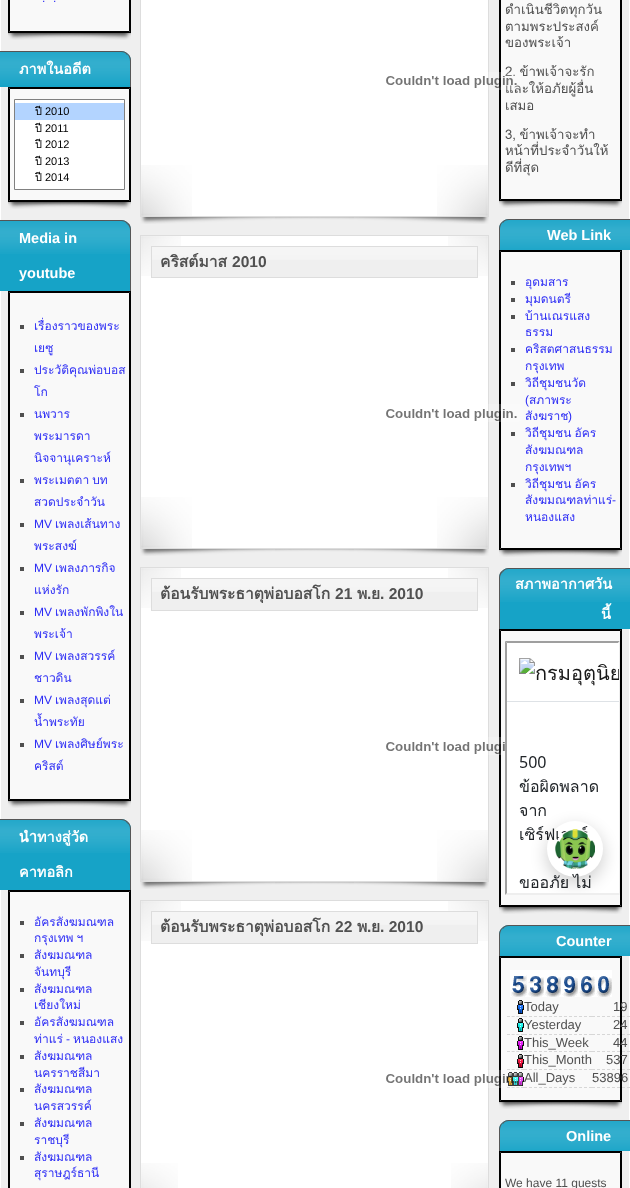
async function draw(canvas) {
  canvas.width = 630
  canvas.height = 1188
  const ctx = canvas.getContext('2d')
  ctx.miterLimit = 4
  ctx.fontKerning = 'normal'
  async function loadImage(src) {
    const img = new Image()
    img.src = src
    await img.decode()
    return img
  }

  ctx.fillStyle = '#efefef'
  ctx.fillRect(0, 0, 630, 1188)
  ctx.strokeStyle = '#fff'
  ctx.strokeRect(0.5, -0.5, 629, 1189)
  ctx.strokeStyle = '#000'
  ctx.strokeRect(8.5, -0.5, 122, 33)
  ctx.fillStyle = '#f9f9f9'
  ctx.beginPath()
  ctx.rect(9.5, -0.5, 120, 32)
  ctx.fill()
  ctx.stroke()
  ctx.font = '12px Liberation Sans'
  ctx.fillStyle = '#2c2cf5'
  ctx.fillText('.', 42, 2)
  ctx.fillText('.', 53, 2)
  ctx.drawImage(await loadImage('image0.png'), 8, 33, 123, 7)
  ctx.drawImage(await loadImage('image1.png'), 8, 33, 123, 7)
  ctx.fillStyle = '#16a3c7'
  ctx.beginPath()
  ctx.moveTo(-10, 51)
  ctx.lineTo(121, 51)
  ctx.bezierCurveTo(126.5, 51, 131, 55.5, 131, 61)
  ctx.lineTo(131, 87)
  ctx.lineTo(-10, 87)
  ctx.closePath()
  ctx.fill()
  ctx.drawImage(await loadImage('image2.png'), 0, 52, 131, 33)
  ctx.fillStyle = '#555'
  ctx.beginPath()
  ctx.moveTo(-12, 51)
  ctx.lineTo(-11, 52)
  ctx.lineTo(121, 52)
  ctx.bezierCurveTo(124, 52, 126, 53, 127, 55)
  ctx.lineTo(128, 54)
  ctx.bezierCurveTo(126, 52, 124, 51, 121, 51)
  ctx.closePath()
  ctx.fill()
  ctx.beginPath()
  ctx.moveTo(130, 87)
  ctx.lineTo(131, 87)
  ctx.lineTo(131, 61)
  ctx.bezierCurveTo(131, 58, 130, 55.5, 128, 54)
  ctx.lineTo(127.5, 54.5)
  ctx.bezierCurveTo(129, 56, 130, 58.5, 130, 61)
  ctx.closePath()
  ctx.fill()
  ctx.font = 'bold 14.5px Loma'
  ctx.fillStyle = '#fff'
  ctx.fillText('ภาพในอดีต', 19, 74)
  ctx.strokeRect(8.5, 87.5, 122, 114)
  ctx.fillStyle = '#f9f9f9'
  ctx.beginPath()
  ctx.rect(9.5, 88.5, 120, 112)
  ctx.fill()
  ctx.stroke()
  ctx.fillStyle = '#fff'
  ctx.beginPath()
  ctx.rect(14.5, 99.5, 110, 90)
  ctx.fill()
  ctx.strokeStyle = '#808080'
  ctx.stroke()
  ctx.fillStyle = '#b3d4ff'
  ctx.fillRect(15, 103, 109, 17)
  ctx.font = '11px Loma'
  ctx.fillStyle = '#000'
  ctx.fillText('ปี', 35, 115)
  ctx.font = '11px Liberation Sans'
  ctx.fillText('2010', 45, 115)
  ctx.font = '11px Loma'
  ctx.fillText('ปี', 35, 132)
  ctx.font = '11px Liberation Sans'
  ctx.fillText('2011', 45, 132)
  ctx.font = '11px Loma'
  ctx.fillText('ปี', 35, 148)
  ctx.font = '11px Liberation Sans'
  ctx.fillText('2012', 45, 148)
  ctx.font = '11px Loma'
  ctx.fillText('ปี', 35, 165)
  ctx.font = '11px Liberation Sans'
  ctx.fillText('2013', 45, 165)
  ctx.font = '11px Loma'
  ctx.fillText('ปี', 35, 181)
  ctx.font = '11px Liberation Sans'
  ctx.fillText('2014', 45, 181)
  ctx.drawImage(await loadImage('image0.png'), 8, 202, 123, 7)
  ctx.drawImage(await loadImage('image1.png'), 8, 202, 123, 7)
  ctx.fillStyle = '#16a3c7'
  ctx.beginPath()
  ctx.moveTo(-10, 220)
  ctx.lineTo(121, 220)
  ctx.bezierCurveTo(126.5, 220, 131, 224.5, 131, 230)
  ctx.lineTo(131, 291)
  ctx.lineTo(-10, 291)
  ctx.closePath()
  ctx.fill()
  ctx.drawImage(await loadImage('image2.png'), 0, 221, 131, 33)
  ctx.fillStyle = '#555'
  ctx.beginPath()
  ctx.moveTo(-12, 220)
  ctx.lineTo(-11, 221)
  ctx.lineTo(121, 221)
  ctx.bezierCurveTo(124, 221, 126, 222, 127, 224)
  ctx.lineTo(128, 223)
  ctx.bezierCurveTo(126, 221, 124, 220, 121, 220)
  ctx.closePath()
  ctx.fill()
  ctx.beginPath()
  ctx.moveTo(130, 291)
  ctx.lineTo(131, 291)
  ctx.lineTo(131, 230)
  ctx.bezierCurveTo(131, 227, 130, 224, 128, 223)
  ctx.lineTo(127, 224)
  ctx.bezierCurveTo(129, 225, 130, 228, 130, 230)
  ctx.closePath()
  ctx.fill()
  ctx.font = 'bold 14.5px Liberation Sans'
  ctx.fillStyle = '#fff'
  ctx.fillText('Media in', 19, 243)
  ctx.fillText('youtube', 19, 278)
  ctx.strokeStyle = '#000'
  ctx.strokeRect(8.5, 291.5, 122, 509)
  ctx.fillStyle = '#f9f9f9'
  ctx.beginPath()
  ctx.rect(9.5, 292.5, 120, 507)
  ctx.fill()
  ctx.stroke()
  ctx.fillStyle = '#505050'
  ctx.fillRect(20, 325, 4, 4)
  ctx.font = '12px Loma'
  ctx.fillStyle = '#2c2cf5'
  ctx.fillText('เรื่องราวของพระ', 34, 330)
  ctx.fillText('เยซู', 34, 352)
  ctx.fillStyle = '#505050'
  ctx.fillRect(20, 369, 4, 4)
  ctx.fillStyle = '#2c2cf5'
  ctx.fillText('ประวัติคุณพ่อบอส', 34, 374)
  ctx.fillText('โก', 34, 396)
  ctx.fillStyle = '#505050'
  ctx.fillRect(20, 413, 4, 4)
  ctx.fillStyle = '#2c2cf5'
  ctx.fillText('นพวาร', 34, 418)
  ctx.fillText('พระมารดา', 34, 440)
  ctx.fillText('นิจจานุเคราะห์', 34, 462)
  ctx.fillStyle = '#505050'
  ctx.fillRect(20, 479, 4, 4)
  ctx.wordSpacing = '-1px'
  ctx.fillStyle = '#2c2cf5'
  ctx.fillText('พระเมตตา บท', 34, 484)
  ctx.wordSpacing = '0px'
  ctx.fillText('สวดประจำวัน', 34, 506)
  ctx.fillStyle = '#505050'
  ctx.fillRect(20, 523, 4, 4)
  ctx.font = '12px Liberation Sans'
  ctx.fillStyle = '#2c2cf5'
  ctx.fillText('MV', 34, 528)
  ctx.font = '12px Loma'
  ctx.fillText('เพลงเส้นทาง', 55, 528)
  ctx.fillText('พระสงฆ์', 34, 550)
  ctx.fillStyle = '#505050'
  ctx.fillRect(20, 567, 4, 4)
  ctx.font = '12px Liberation Sans'
  ctx.fillStyle = '#2c2cf5'
  ctx.fillText('MV', 34, 572)
  ctx.font = '12px Loma'
  ctx.fillText('เพลงภารกิจ', 55, 572)
  ctx.fillText('แห่งรัก', 34, 594)
  ctx.fillStyle = '#505050'
  ctx.fillRect(20, 611, 4, 4)
  ctx.font = '12px Liberation Sans'
  ctx.fillStyle = '#2c2cf5'
  ctx.fillText('MV', 34, 616)
  ctx.font = '12px Loma'
  ctx.fillText('เพลงพักพิงใน', 55, 616)
  ctx.fillText('พระเจ้า', 34, 638)
  ctx.fillStyle = '#505050'
  ctx.fillRect(20, 655, 4, 4)
  ctx.font = '12px Liberation Sans'
  ctx.fillStyle = '#2c2cf5'
  ctx.fillText('MV', 34, 660)
  ctx.font = '12px Loma'
  ctx.fillText('เพลงสวรรค์', 55, 660)
  ctx.fillText('ชาวดิน', 34, 682)
  ctx.fillStyle = '#505050'
  ctx.fillRect(20, 699, 4, 4)
  ctx.font = '12px Liberation Sans'
  ctx.fillStyle = '#2c2cf5'
  ctx.fillText('MV', 34, 704)
  ctx.font = '12px Loma'
  ctx.fillText('เพลงสุดแต่', 55, 704)
  ctx.fillText('น้ำพระทัย', 34, 726)
  ctx.fillStyle = '#505050'
  ctx.fillRect(20, 743, 4, 4)
  ctx.font = '12px Liberation Sans'
  ctx.fillStyle = '#2c2cf5'
  ctx.fillText('MV', 34, 748)
  ctx.font = '12px Loma'
  ctx.fillText('เพลงศิษย์พระ', 55, 748)
  ctx.fillText('คริสต์', 34, 770)
  ctx.drawImage(await loadImage('image0.png'), 8, 801, 123, 7)
  ctx.drawImage(await loadImage('image1.png'), 8, 801, 123, 7)
  ctx.fillStyle = '#16a3c7'
  ctx.beginPath()
  ctx.moveTo(-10, 819)
  ctx.lineTo(121, 819)
  ctx.bezierCurveTo(126.5, 819, 131, 823.5, 131, 829)
  ctx.lineTo(131, 890)
  ctx.lineTo(-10, 890)
  ctx.closePath()
  ctx.fill()
  ctx.drawImage(await loadImage('image2.png'), 0, 820, 131, 33)
  ctx.fillStyle = '#555'
  ctx.beginPath()
  ctx.moveTo(-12, 819)
  ctx.lineTo(-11, 820)
  ctx.lineTo(121, 820)
  ctx.bezierCurveTo(124, 820, 126, 821, 127, 823)
  ctx.lineTo(128, 822)
  ctx.bezierCurveTo(126, 820, 124, 819, 121, 819)
  ctx.closePath()
  ctx.fill()
  ctx.beginPath()
  ctx.moveTo(130, 890)
  ctx.lineTo(131, 890)
  ctx.lineTo(131, 829)
  ctx.bezierCurveTo(131, 826, 130, 824, 128, 822)
  ctx.lineTo(127, 823)
  ctx.bezierCurveTo(129, 824, 130, 826, 130, 829)
  ctx.closePath()
  ctx.fill()
  ctx.font = 'bold 14.5px Loma'
  ctx.fillStyle = '#fff'
  ctx.fillText('นำทางสู่วัด', 19, 842)
  ctx.fillText('คาทอลิก', 19, 877)
  ctx.strokeRect(8.5, 890.5, 122, 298)
  ctx.fillStyle = '#f9f9f9'
  ctx.beginPath()
  ctx.rect(9.5, 891.5, 120, 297)
  ctx.fill()
  ctx.stroke()
  ctx.fillStyle = '#505050'
  ctx.fillRect(20, 921, 4, 4)
  ctx.font = '12px Loma'
  ctx.fillStyle = '#2c2cf5'
  ctx.fillText('อัครสังฆมณฑล', 34, 926)
  ctx.wordSpacing = '-1px'
  ctx.fillText('กรุงเทพ ฯ', 34, 942)
  ctx.fillStyle = '#505050'
  ctx.fillRect(20, 954, 4, 4)
  ctx.wordSpacing = '0px'
  ctx.fillStyle = '#2c2cf5'
  ctx.fillText('สังฆมณฑล', 34, 959)
  ctx.fillText('จันทบุรี', 34, 976)
  ctx.fillStyle = '#505050'
  ctx.fillRect(20, 988, 4, 4)
  ctx.fillStyle = '#2c2cf5'
  ctx.fillText('สังฆมณฑล', 34, 993)
  ctx.fillText('เชียงใหม่', 34, 1009)
  ctx.fillStyle = '#505050'
  ctx.fillRect(20, 1021, 4, 4)
  ctx.fillStyle = '#2c2cf5'
  ctx.fillText('อัครสังฆมณฑล', 34, 1026)
  ctx.fillText('ท่าแร่', 34, 1043)
  ctx.font = '12px Liberation Sans'
  ctx.fillText('-', 66, 1043)
  ctx.font = '12px Loma'
  ctx.fillText('หนองแสง', 73, 1043)
  ctx.fillStyle = '#505050'
  ctx.fillRect(20, 1055, 4, 4)
  ctx.fillStyle = '#2c2cf5'
  ctx.fillText('สังฆมณฑล', 34, 1060)
  ctx.fillText('นครราชสีมา', 34, 1077)
  ctx.fillStyle = '#505050'
  ctx.fillRect(20, 1088, 4, 4)
  ctx.fillStyle = '#2c2cf5'
  ctx.fillText('สังฆมณฑล', 34, 1093)
  ctx.fillText('นครสวรรค์', 34, 1110)
  ctx.fillStyle = '#505050'
  ctx.fillRect(20, 1122, 4, 4)
  ctx.fillStyle = '#2c2cf5'
  ctx.fillText('สังฆมณฑล', 34, 1127)
  ctx.fillText('ราชบุรี', 34, 1144)
  ctx.fillStyle = '#505050'
  ctx.fillRect(20, 1156, 4, 4)
  ctx.fillStyle = '#2c2cf5'
  ctx.fillText('สังฆมณฑล', 34, 1161)
  ctx.fillText('สุราษฎร์ธานี', 34, 1177)
  ctx.fillStyle = '#fff'
  ctx.fillRect(141, 0, 347, 216)
  ctx.drawImage(await loadImage('image3.png'), 141, 165, 51, 51)
  ctx.strokeStyle = '#ddd'
  ctx.strokeRect(140.5, -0.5, 348, 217)
  ctx.drawImage(await loadImage('image4.png'), 437, 165, 51, 51)
  ctx.strokeStyle = '#000'
  ctx.strokeRect(499.5, -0.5, 122, 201)
  ctx.fillStyle = '#f9f9f9'
  ctx.beginPath()
  ctx.rect(500.5, -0.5, 120, 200)
  ctx.fill()
  ctx.stroke()
  ctx.wordSpacing = '-1px'
  ctx.font = '13.25px Loma'
  ctx.fillStyle = '#505050'
  ctx.fillText('2. ข้าพเจ้าจะรัก', 505, 76)
  ctx.wordSpacing = '0px'
  ctx.fillText('และให้อภัยผู้อื่น', 505, 93)
  ctx.drawImage(await loadImage('image5.png'), 386, 72, 135, 18)
  ctx.drawImage(await loadImage('image6.png'), 140, 217, 214, 7)
  ctx.drawImage(await loadImage('image7.png'), 275, 217, 214, 7)
  ctx.fillStyle = '#fff'
  ctx.fillRect(141, 236, 347, 312)
  ctx.drawImage(await loadImage('image3.png'), 141, 497, 51, 51)
  ctx.strokeStyle = '#ddd'
  ctx.strokeRect(140.5, 235.5, 348, 313)
  ctx.drawImage(await loadImage('image4.png'), 437, 497, 51, 51)
  ctx.drawImage(await loadImage('image8.png'), 448, 236, 40, 40)
  ctx.drawImage(await loadImage('image9.png'), 141, 236, 40, 40)
  ctx.fillStyle = '#efefef'
  ctx.fillRect(152, 247, 325, 30)
  ctx.drawImage(await loadImage('image10.png'), 152, 247, 325, 13)
  ctx.strokeRect(151.5, 246.5, 326, 31)
  ctx.font = 'bold 15.6px Loma'
  ctx.fillStyle = '#505050'
  ctx.fillText('คริสต์มาส', 160, 267)
  ctx.font = 'bold 15.6px Liberation Sans'
  ctx.fillText('2010', 232, 267)
  ctx.strokeStyle = '#000'
  ctx.strokeRect(499.5, 250.5, 122, 299)
  ctx.fillStyle = '#f9f9f9'
  ctx.beginPath()
  ctx.rect(500.5, 251.5, 120, 297)
  ctx.fill()
  ctx.stroke()
  ctx.font = '12px Loma'
  ctx.fillStyle = '#2c2cf5'
  ctx.fillText('สังฆราช', 525, 420)
  ctx.drawImage(await loadImage('image11.png'), 386, 404, 137, 18)
  ctx.drawImage(await loadImage('image6.png'), 140, 549, 214, 7)
  ctx.drawImage(await loadImage('image7.png'), 275, 549, 214, 7)
  ctx.fillStyle = '#fff'
  ctx.fillRect(141, 568, 347, 313)
  ctx.drawImage(await loadImage('image3.png'), 141, 830, 51, 51)
  ctx.strokeStyle = '#ddd'
  ctx.strokeRect(140.5, 567.5, 348, 314)
  ctx.drawImage(await loadImage('image4.png'), 437, 830, 51, 51)
  ctx.drawImage(await loadImage('image8.png'), 448, 568, 40, 40)
  ctx.drawImage(await loadImage('image9.png'), 141, 568, 40, 40)
  ctx.fillStyle = '#efefef'
  ctx.fillRect(152, 579, 325, 31)
  ctx.drawImage(await loadImage('image10.png'), 152, 579, 325, 13)
  ctx.strokeRect(151.5, 578.5, 326, 32)
  ctx.font = 'bold 15.6px Loma'
  ctx.fillStyle = '#505050'
  ctx.fillText('ต้อนรับพระธาตุพ่อบอสโก', 160, 599)
  ctx.font = 'bold 15.6px Liberation Sans'
  ctx.fillText('21', 335, 599)
  ctx.font = 'bold 15.6px Loma'
  ctx.fillText('พ', 357, 599)
  ctx.font = 'bold 15.6px Liberation Sans'
  ctx.fillText('.', 367, 599)
  ctx.font = 'bold 15.6px Loma'
  ctx.fillText('ย', 371, 599)
  ctx.font = 'bold 15.6px Liberation Sans'
  ctx.fillText('. 2010', 380, 599)
  ctx.strokeStyle = '#000'
  ctx.strokeRect(499.5, 629.5, 122, 277)
  ctx.fillStyle = '#f9f9f9'
  ctx.beginPath()
  ctx.rect(500.5, 630.5, 120, 275)
  ctx.fill()
  ctx.stroke()
  ctx.drawImage(await loadImage('image12.png'), 386, 737, 119, 18)
  ctx.drawImage(await loadImage('image6.png'), 140, 882, 214, 7)
  ctx.drawImage(await loadImage('image7.png'), 275, 882, 214, 7)
  ctx.fillStyle = '#fff'
  ctx.fillRect(141, 901, 347, 287)
  ctx.drawImage(await loadImage('image13.png'), 141, 1163, 37, 25)
  ctx.strokeStyle = '#ddd'
  ctx.strokeRect(140.5, 900.5, 348, 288)
  ctx.drawImage(await loadImage('image14.png'), 451, 1163, 37, 25)
  ctx.drawImage(await loadImage('image8.png'), 448, 901, 40, 40)
  ctx.drawImage(await loadImage('image9.png'), 141, 901, 40, 40)
  ctx.fillStyle = '#efefef'
  ctx.fillRect(152, 912, 325, 31)
  ctx.drawImage(await loadImage('image10.png'), 152, 912, 325, 13)
  ctx.strokeRect(151.5, 911.5, 326, 32)
  ctx.font = 'bold 15.6px Loma'
  ctx.fillStyle = '#505050'
  ctx.fillText('ต้อนรับพระธาตุพ่อบอสโก', 160, 932)
  ctx.font = 'bold 15.6px Liberation Sans'
  ctx.fillText('22', 335, 932)
  ctx.font = 'bold 15.6px Loma'
  ctx.fillText('พ', 357, 932)
  ctx.font = 'bold 15.6px Liberation Sans'
  ctx.fillText('.', 367, 932)
  ctx.font = 'bold 15.6px Loma'
  ctx.fillText('ย', 371, 932)
  ctx.font = 'bold 15.6px Liberation Sans'
  ctx.fillText('. 2010', 380, 932)
  ctx.strokeStyle = '#000'
  ctx.strokeRect(499.5, 956.5, 122, 145)
  ctx.fillStyle = '#f9f9f9'
  ctx.beginPath()
  ctx.rect(500.5, 957.5, 120, 143)
  ctx.fill()
  ctx.stroke()
  ctx.beginPath()
  ctx.moveTo(507, 1087.5)
  ctx.lineTo(524, 1087.5)
  ctx.strokeStyle = '#d7d7d7'
  ctx.setLineDash([3, 1.67])
  ctx.stroke()
  ctx.drawImage(await loadImage('image29.png'), 507, 1072, 17, 14)
  ctx.drawImage(await loadImage('image15.png'), 386, 1070, 137, 18)
  ctx.font = '13.25px Loma'
  ctx.fillStyle = '#505050'
  ctx.fillText('ดำเนินชีวิตทุกวัน', 505, 14)
  ctx.fillText('ตามพระประสงค์', 505, 31)
  ctx.fillText('ของพระเจ้า', 505, 47)
  ctx.fillText('เสมอ', 505, 110)
  ctx.wordSpacing = '-1px'
  ctx.fillText('3, ข้าพเจ้าจะทำ', 505, 139)
  ctx.wordSpacing = '0px'
  ctx.fillText('หน้าที่ประจำวันให้', 505, 155)
  ctx.fillText('ดีที่สุด', 505, 172)
  ctx.drawImage(await loadImage('image0.png'), 499, 201, 123, 7)
  ctx.drawImage(await loadImage('image1.png'), 499, 201, 123, 7)
  ctx.fillStyle = '#16a3c7'
  ctx.beginPath()
  ctx.moveTo(509, 219)
  ctx.lineTo(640, 219)
  ctx.lineTo(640, 250)
  ctx.lineTo(499, 250)
  ctx.lineTo(499, 229)
  ctx.bezierCurveTo(499, 223.5, 503.5, 219, 509, 219)
  ctx.closePath()
  ctx.fill()
  ctx.drawImage(await loadImage('image16.png'), 499, 220, 131, 30)
  ctx.fillStyle = '#555'
  ctx.beginPath()
  ctx.moveTo(509, 219)
  ctx.bezierCurveTo(506, 219, 504, 220, 502, 222)
  ctx.lineTo(503, 223)
  ctx.bezierCurveTo(504, 221, 506, 220, 509, 220)
  ctx.lineTo(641, 220)
  ctx.lineTo(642, 219)
  ctx.closePath()
  ctx.fill()
  ctx.beginPath()
  ctx.moveTo(499, 250)
  ctx.lineTo(500, 250)
  ctx.lineTo(500, 229)
  ctx.bezierCurveTo(500, 226.5, 501, 224, 502.5, 222.5)
  ctx.lineTo(502, 222)
  ctx.bezierCurveTo(500, 223.5, 499, 226, 499, 229)
  ctx.closePath()
  ctx.fill()
  ctx.font = 'bold 14.5px Liberation Sans'
  ctx.fillStyle = '#fff'
  ctx.fillText('Web Link', 547, 240)
  ctx.fillStyle = '#505050'
  ctx.fillRect(511, 281, 4, 4)
  ctx.font = '12px Loma'
  ctx.fillStyle = '#2c2cf5'
  ctx.fillText('อุดมสาร', 525, 286)
  ctx.fillStyle = '#505050'
  ctx.fillRect(511, 298, 4, 4)
  ctx.fillStyle = '#2c2cf5'
  ctx.fillText('มุมดนตรี', 525, 303)
  ctx.fillStyle = '#505050'
  ctx.fillRect(511, 315, 4, 4)
  ctx.fillStyle = '#2c2cf5'
  ctx.fillText('บ้านเณรแสง', 525, 320)
  ctx.fillText('ธรรม', 525, 336)
  ctx.fillStyle = '#505050'
  ctx.fillRect(511, 348, 4, 4)
  ctx.fillStyle = '#2c2cf5'
  ctx.fillText('คริสตศาสนธรรม', 525, 353)
  ctx.fillText('กรุงเทพ', 525, 370)
  ctx.fillStyle = '#505050'
  ctx.fillRect(511, 382, 4, 4)
  ctx.fillStyle = '#2c2cf5'
  ctx.fillText('วิถีชุมชนวัด', 525, 387)
  ctx.font = '12px Liberation Sans'
  ctx.fillText('(', 525, 404)
  ctx.font = '12px Loma'
  ctx.fillText('สภาพระ', 529, 404)
  ctx.font = '12px Liberation Sans'
  ctx.fillText(')', 568, 420)
  ctx.fillStyle = '#505050'
  ctx.fillRect(511, 432, 4, 4)
  ctx.wordSpacing = '-1px'
  ctx.font = '12px Loma'
  ctx.fillStyle = '#2c2cf5'
  ctx.fillText('วิถีชุมชน อัคร', 525, 437)
  ctx.wordSpacing = '0px'
  ctx.fillText('สังฆมณฑล', 525, 454)
  ctx.fillText('กรุงเทพฯ', 525, 471)
  ctx.fillStyle = '#505050'
  ctx.fillRect(511, 483, 4, 4)
  ctx.wordSpacing = '-1px'
  ctx.fillStyle = '#2c2cf5'
  ctx.fillText('วิถีชุมชน อัคร', 525, 488)
  ctx.wordSpacing = '0px'
  ctx.fillText('สังฆมณฑลท่าแร่', 525, 504)
  ctx.font = '12px Liberation Sans'
  ctx.fillText('-', 612, 504)
  ctx.font = '12px Loma'
  ctx.fillText('หนองแสง', 525, 521)
  ctx.drawImage(await loadImage('image0.png'), 499, 550, 123, 7)
  ctx.drawImage(await loadImage('image1.png'), 499, 550, 123, 7)
  ctx.fillStyle = '#16a3c7'
  ctx.beginPath()
  ctx.moveTo(509, 568)
  ctx.lineTo(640, 568)
  ctx.lineTo(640, 629)
  ctx.lineTo(499, 629)
  ctx.lineTo(499, 578)
  ctx.bezierCurveTo(499, 572.5, 503.5, 568, 509, 568)
  ctx.closePath()
  ctx.fill()
  ctx.drawImage(await loadImage('image17.png'), 499, 569, 131, 33)
  ctx.fillStyle = '#555'
  ctx.beginPath()
  ctx.moveTo(509, 568)
  ctx.bezierCurveTo(506, 568, 504, 569, 502, 571)
  ctx.lineTo(503, 572)
  ctx.bezierCurveTo(504, 570, 506, 569, 509, 569)
  ctx.lineTo(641, 569)
  ctx.lineTo(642, 568)
  ctx.closePath()
  ctx.fill()
  ctx.beginPath()
  ctx.moveTo(499, 629)
  ctx.lineTo(500, 629)
  ctx.lineTo(500, 578)
  ctx.bezierCurveTo(500, 576, 501, 573, 503, 572)
  ctx.lineTo(502, 571)
  ctx.bezierCurveTo(500, 572, 499, 575, 499, 578)
  ctx.closePath()
  ctx.fill()
  ctx.font = 'bold 14.5px Loma'
  ctx.fillStyle = '#fff'
  ctx.fillText('สภาพอากาศวัน', 515, 589)
  ctx.fillText('นี้', 601, 619)
  ctx.fillStyle = '#9f9f9f'
  ctx.beginPath()
  ctx.moveTo(505, 641)
  ctx.lineTo(620, 641)
  ctx.lineTo(618, 643)
  ctx.lineTo(507, 643)
  ctx.closePath()
  ctx.fill()
  ctx.fillStyle = '#eee'
  ctx.beginPath()
  ctx.moveTo(620, 641)
  ctx.lineTo(620, 895)
  ctx.lineTo(618, 893)
  ctx.lineTo(618, 643)
  ctx.closePath()
  ctx.fill()
  ctx.beginPath()
  ctx.moveTo(620, 895)
  ctx.lineTo(505, 895)
  ctx.lineTo(507, 893)
  ctx.lineTo(618, 893)
  ctx.closePath()
  ctx.fill()
  ctx.fillStyle = '#9f9f9f'
  ctx.beginPath()
  ctx.moveTo(505, 895)
  ctx.lineTo(505, 641)
  ctx.lineTo(507, 643)
  ctx.lineTo(507, 893)
  ctx.closePath()
  ctx.fill()
  ctx.drawImage(await loadImage('image18.png'), 507, 643, 112, 250)
  ctx.drawImage(await loadImage('image0.png'), 499, 907, 123, 7)
  ctx.drawImage(await loadImage('image1.png'), 499, 907, 123, 7)
  ctx.fillStyle = '#16a3c7'
  ctx.beginPath()
  ctx.moveTo(509, 925)
  ctx.lineTo(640, 925)
  ctx.lineTo(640, 956)
  ctx.lineTo(499, 956)
  ctx.lineTo(499, 935)
  ctx.bezierCurveTo(499, 929.5, 503.5, 925, 509, 925)
  ctx.closePath()
  ctx.fill()
  ctx.drawImage(await loadImage('image16.png'), 499, 926, 131, 30)
  ctx.fillStyle = '#555'
  ctx.beginPath()
  ctx.moveTo(509, 925)
  ctx.bezierCurveTo(506, 925, 504, 926, 502, 928)
  ctx.lineTo(503, 929)
  ctx.bezierCurveTo(504, 927, 506, 926, 509, 926)
  ctx.lineTo(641, 926)
  ctx.lineTo(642, 925)
  ctx.closePath()
  ctx.fill()
  ctx.beginPath()
  ctx.moveTo(499, 956)
  ctx.lineTo(500, 956)
  ctx.lineTo(500, 935)
  ctx.bezierCurveTo(500, 932.5, 501, 930, 502.5, 928.5)
  ctx.lineTo(502, 928)
  ctx.bezierCurveTo(500, 929.5, 499, 932, 499, 935)
  ctx.closePath()
  ctx.fill()
  ctx.font = 'bold 14.5px Liberation Sans'
  ctx.fillStyle = '#fff'
  ctx.fillText('Counter', 556, 946)
  ctx.drawImage(await loadImage('image19.png'), 510, 970, 17, 27)
  ctx.drawImage(await loadImage('image20.png'), 527, 970, 17, 27)
  ctx.drawImage(await loadImage('image21.png'), 544, 970, 17, 27)
  ctx.drawImage(await loadImage('image22.png'), 561, 970, 17, 27)
  ctx.drawImage(await loadImage('image23.png'), 578, 970, 17, 27)
  ctx.drawImage(await loadImage('image24.png'), 595, 970, 17, 27)
  ctx.beginPath()
  ctx.moveTo(507, 1016.5)
  ctx.lineTo(524, 1016.5)
  ctx.stroke()
  ctx.drawImage(await loadImage('image25.png'), 517, 1000, 7, 14)
  ctx.beginPath()
  ctx.moveTo(524, 1016.5)
  ctx.lineTo(592, 1016.5)
  ctx.setLineDash([3, 2])
  ctx.stroke()
  ctx.font = '13px Liberation Sans'
  ctx.fillStyle = '#505050'
  ctx.fillText('Today', 524, 1011)
  ctx.beginPath()
  ctx.moveTo(592, 1016.5)
  ctx.lineTo(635, 1016.5)
  ctx.stroke()
  ctx.fillText('19', 613, 1011)
  ctx.beginPath()
  ctx.moveTo(507, 1034.5)
  ctx.lineTo(524, 1034.5)
  ctx.setLineDash([3, 1.67])
  ctx.stroke()
  ctx.drawImage(await loadImage('image26.png'), 517, 1018, 7, 14)
  ctx.beginPath()
  ctx.moveTo(524, 1034.5)
  ctx.lineTo(592, 1034.5)
  ctx.setLineDash([3, 2])
  ctx.stroke()
  ctx.fillText('Yesterday', 524, 1029)
  ctx.beginPath()
  ctx.moveTo(592, 1034.5)
  ctx.lineTo(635, 1034.5)
  ctx.stroke()
  ctx.fillText('24', 613, 1029)
  ctx.beginPath()
  ctx.moveTo(507, 1051.5)
  ctx.lineTo(524, 1051.5)
  ctx.setLineDash([3, 1.67])
  ctx.stroke()
  ctx.drawImage(await loadImage('image27.png'), 517, 1036, 7, 14)
  ctx.beginPath()
  ctx.moveTo(524, 1051.5)
  ctx.lineTo(592, 1051.5)
  ctx.setLineDash([3, 2])
  ctx.stroke()
  ctx.fillText('This_Week', 524, 1047)
  ctx.beginPath()
  ctx.moveTo(592, 1051.5)
  ctx.lineTo(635, 1051.5)
  ctx.stroke()
  ctx.fillText('44', 613, 1047)
  ctx.beginPath()
  ctx.moveTo(507, 1069.5)
  ctx.lineTo(524, 1069.5)
  ctx.setLineDash([3, 1.67])
  ctx.stroke()
  ctx.drawImage(await loadImage('image28.png'), 517, 1054, 7, 14)
  ctx.beginPath()
  ctx.moveTo(524, 1069.5)
  ctx.lineTo(592, 1069.5)
  ctx.setLineDash([3, 2])
  ctx.stroke()
  ctx.fillText('This_Month', 524, 1064)
  ctx.beginPath()
  ctx.moveTo(592, 1069.5)
  ctx.lineTo(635, 1069.5)
  ctx.stroke()
  ctx.fillText('537', 606, 1064)
  ctx.beginPath()
  ctx.moveTo(524, 1087.5)
  ctx.lineTo(592, 1087.5)
  ctx.stroke()
  ctx.fillText('All_Days', 524, 1082)
  ctx.beginPath()
  ctx.moveTo(592, 1087.5)
  ctx.lineTo(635, 1087.5)
  ctx.stroke()
  ctx.fillText('53896', 592, 1082)
  ctx.drawImage(await loadImage('image0.png'), 499, 1102, 123, 7)
  ctx.drawImage(await loadImage('image1.png'), 499, 1102, 123, 7)
  ctx.fillStyle = '#16a3c7'
  ctx.beginPath()
  ctx.moveTo(509, 1120)
  ctx.lineTo(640, 1120)
  ctx.lineTo(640, 1151)
  ctx.lineTo(499, 1151)
  ctx.lineTo(499, 1130)
  ctx.bezierCurveTo(499, 1124.5, 503.5, 1120, 509, 1120)
  ctx.closePath()
  ctx.fill()
  ctx.drawImage(await loadImage('image16.png'), 499, 1121, 131, 30)
  ctx.fillStyle = '#555'
  ctx.beginPath()
  ctx.moveTo(509, 1120)
  ctx.bezierCurveTo(506, 1120, 504, 1121, 502, 1123)
  ctx.lineTo(503, 1124)
  ctx.bezierCurveTo(504, 1122, 506, 1121, 509, 1121)
  ctx.lineTo(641, 1121)
  ctx.lineTo(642, 1120)
  ctx.closePath()
  ctx.fill()
  ctx.beginPath()
  ctx.moveTo(499, 1151)
  ctx.lineTo(500, 1151)
  ctx.lineTo(500, 1130)
  ctx.bezierCurveTo(500, 1127.5, 501, 1125, 502.5, 1123.5)
  ctx.lineTo(502, 1123)
  ctx.bezierCurveTo(500, 1124.5, 499, 1127, 499, 1130)
  ctx.closePath()
  ctx.fill()
  ctx.font = 'bold 14.5px Liberation Sans'
  ctx.fillStyle = '#fff'
  ctx.fillText('Online', 566, 1141)
  ctx.strokeStyle = '#000'
  ctx.setLineDash([])
  ctx.strokeRect(499.5, 1151.5, 122, 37)
  ctx.fillStyle = '#f9f9f9'
  ctx.beginPath()
  ctx.rect(500.5, 1152.5, 120, 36)
  ctx.fill()
  ctx.stroke()
  ctx.font = '12px Liberation Sans'
  ctx.fillStyle = '#505050'
  ctx.fillText('We have 11 guests', 505, 1187)
}

draw(document.querySelector('canvas'))
